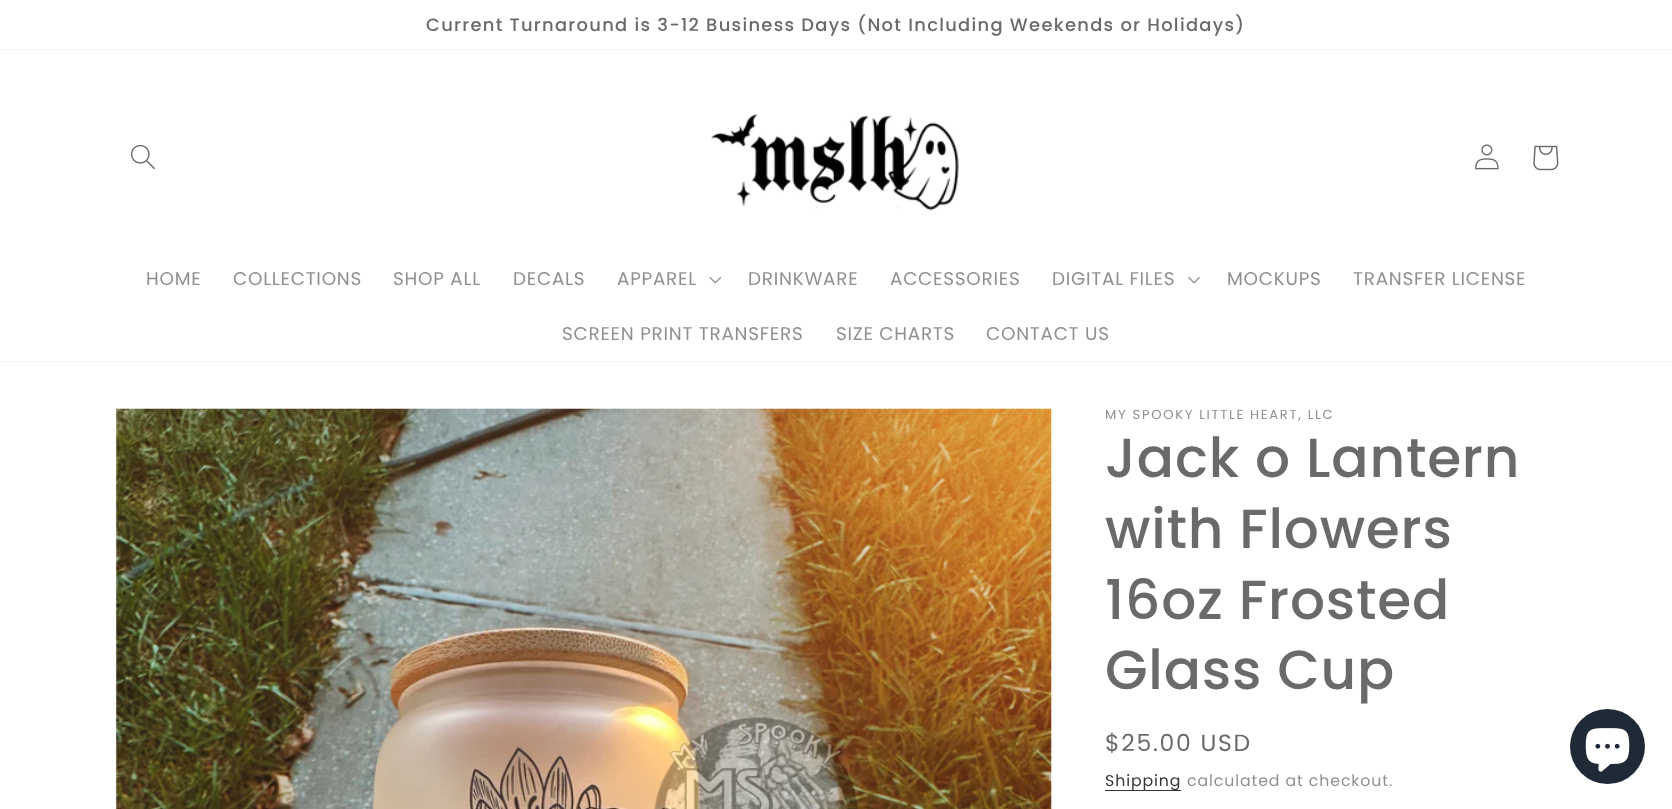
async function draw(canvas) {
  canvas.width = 1672
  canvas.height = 809
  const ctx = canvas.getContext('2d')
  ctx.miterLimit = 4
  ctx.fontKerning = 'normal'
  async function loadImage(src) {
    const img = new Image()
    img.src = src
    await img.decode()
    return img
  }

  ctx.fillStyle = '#fff'
  ctx.fillRect(0, 0, 1672, 809)
  ctx.fillStyle = '#f3f3f3'
  ctx.fillRect(0, 49, 1672, 1)
  ctx.letterSpacing = '1.3px'
  ctx.font = '500 17.9px Poppins'
  ctx.fillStyle = '#6c6969'
  ctx.fillText('Current Turnaround is 3-12 Business Days (Not Including Weekends or Holidays)', 426, 31)
  ctx.fillStyle = '#f3f3f3'
  ctx.fillRect(0, 361, 1672, 1)
  ctx.drawImage(await loadImage('image0.png'), 130, 144, 25, 26)
  ctx.drawImage(await loadImage('image1.png'), 711, 113, 248, 98)
  ctx.drawImage(await loadImage('image2.png'), 1475, 144, 24, 26)
  ctx.drawImage(await loadImage('image3.png'), 1533, 145, 26, 26)
  ctx.letterSpacing = '0.75px'
  ctx.font = '18.4px Poppins'
  ctx.fillStyle = '#918f8f'
  ctx.fillText('HOME', 146, 285)
  ctx.fillText('COLLECTIONS', 233, 285)
  ctx.fillText('SHOP ALL', 393, 285)
  ctx.fillText('DECALS', 513, 285)
  ctx.fillText('APPAREL', 617, 285)
  ctx.drawImage(await loadImage('image4.png'), 709, 277, 12, 7)
  ctx.fillText('DRINKWARE', 748, 285)
  ctx.fillText('ACCESSORIES', 890, 285)
  ctx.fillText('DIGITAL FILES', 1052, 285)
  ctx.drawImage(await loadImage('image5.png'), 1188, 277, 12, 7)
  ctx.fillText('MOCKUPS', 1227, 285)
  ctx.fillText('TRANSFER LICENSE', 1353, 285)
  ctx.fillText('SCREEN PRINT TRANSFERS', 562, 340)
  ctx.fillText('SIZE CHARTS', 836, 340)
  ctx.fillText('CONTACT US', 986, 340)
  ctx.strokeStyle = '#f8f8f8'
  ctx.strokeRect(115.5, 408.5, 937, 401)
  ctx.drawImage(await loadImage('image6.png'), 116, 408, 936, 401)
  ctx.letterSpacing = '1.7px'
  ctx.font = '13.1px Poppins'
  ctx.fillText('MY SPOOKY LITTLE HEART, LLC', 1105, 419)
  ctx.letterSpacing = '0.8px'
  ctx.font = '500 55px Poppins'
  ctx.fillStyle = '#6c6969'
  ctx.fillText('Jack o Lantern', 1105, 477)
  ctx.fillText('with Flowers', 1105, 548)
  ctx.fillText('16oz Frosted', 1105, 619)
  ctx.fillText('Glass Cup', 1105, 689)
  ctx.letterSpacing = '1.7px'
  ctx.font = '23.5px Poppins'
  ctx.fillText('$25.00 USD', 1105, 751)
  ctx.fillStyle = '#363636'
  ctx.fillRect(1105, 790, 76, 1)
  ctx.letterSpacing = '0.9px'
  ctx.font = '15.75px Poppins'
  ctx.fillStyle = '#353535'
  ctx.fillText('Shipping', 1105, 786)
  ctx.fillStyle = '#918f8f'
  ctx.fillText('calculated at checkout.', 1187, 786)
  ctx.fillStyle = '#202a36'
  ctx.beginPath()
  ctx.arc(1607.5, 746.5, 37.5, 0, 2 * Math.PI)
  ctx.fill()
  ctx.drawImage(await loadImage('image7.png'), 1585, 728, 45, 44)
}

draw(document.querySelector('canvas'))
